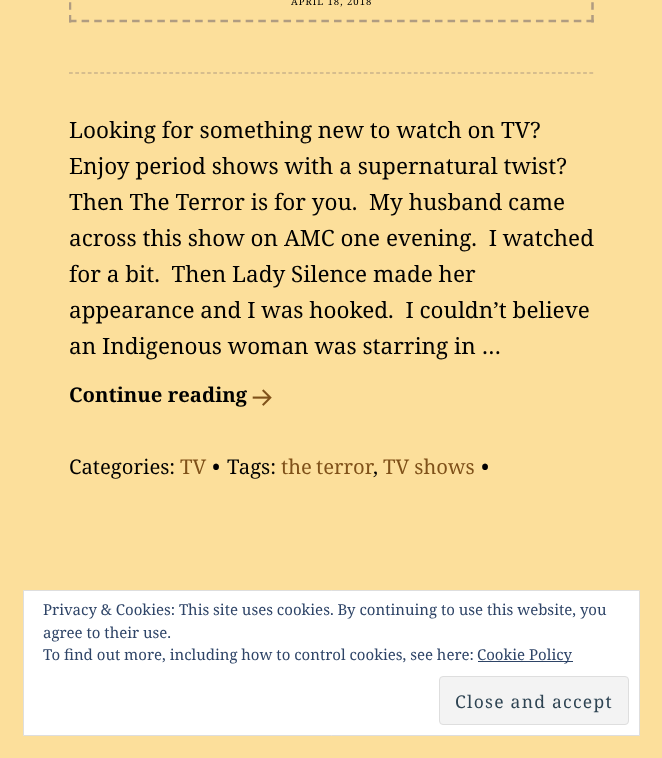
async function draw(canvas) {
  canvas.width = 662
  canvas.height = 758
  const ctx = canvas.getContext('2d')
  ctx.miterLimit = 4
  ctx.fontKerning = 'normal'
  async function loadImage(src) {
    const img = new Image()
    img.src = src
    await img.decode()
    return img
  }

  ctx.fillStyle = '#fcdf9b'
  ctx.fillRect(0, 0, 662, 758)
  ctx.beginPath()
  ctx.moveTo(592.5, -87.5)
  ctx.lineTo(592.5, 22.5)
  ctx.strokeStyle = '#b09c81'
  ctx.lineWidth = 2.5
  ctx.setLineDash([7.5, 5.31])
  ctx.stroke()
  ctx.beginPath()
  ctx.moveTo(69, 21)
  ctx.lineTo(594, 21)
  ctx.setLineDash([7.5, 5.12])
  ctx.stroke()
  ctx.save()
  ctx.beginPath()
  ctx.rect(69, 0, 525, 496)
  ctx.clip()
  ctx.beginPath()
  ctx.moveTo(70, -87.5)
  ctx.lineTo(70, 22.5)
  ctx.setLineDash([7.5, 5.31])
  ctx.stroke()
  ctx.restore()
  ctx.letterSpacing = '1px'
  ctx.font = '9.5px Noto Serif'
  ctx.fillStyle = '#000'
  ctx.fillText('APRIL 18, 2018', 291, 5)
  ctx.beginPath()
  ctx.moveTo(69, 73)
  ctx.lineTo(594, 73)
  ctx.lineWidth = 1.2
  ctx.setLineDash([3.75, 2.52])
  ctx.stroke()
  ctx.letterSpacing = '0px'
  ctx.font = '22.5px Noto Serif'
  ctx.fillText('Looking for something new to watch on TV?', 69, 138)
  ctx.fillText('Enjoy period shows with a supernatural twist?', 69, 174)
  ctx.fillText('Then The Terror is for you.  My husband came', 69, 210)
  ctx.fillText('across this show on AMC one evening.  I watched', 69, 246)
  ctx.fillText('for a bit.  Then Lady Silence made her', 69, 282)
  ctx.fillText('appearance and I was hooked.  I couldn’t believe', 69, 318)
  ctx.fillText('an Indigenous woman was starring in …', 69, 354)
  ctx.font = 'bold 20.25px Noto Serif'
  ctx.fillText('Continue reading', 69, 402)
  ctx.drawImage(await loadImage('image0.png'), 252, 389, 20, 17)
  ctx.font = '20.25px Noto Serif'
  ctx.fillText('Categories:', 69, 474)
  ctx.fillStyle = '#7f5119'
  ctx.fillText('TV', 180, 474)
  ctx.font = 'bold 20.25px Noto Serif'
  ctx.fillStyle = '#000'
  ctx.fillText('•', 212, 474)
  ctx.font = '20.25px Noto Serif'
  ctx.fillText('Tags:', 227, 474)
  ctx.wordSpacing = '-1px'
  ctx.fillStyle = '#7f5119'
  ctx.fillText('the terror', 281, 474)
  ctx.wordSpacing = '0px'
  ctx.fillText('TV shows', 383, 474)
  ctx.font = 'bold 20.25px Noto Serif'
  ctx.fillStyle = '#000'
  ctx.fillText('•', 481, 474)
  ctx.font = '20.25px Noto Serif'
  ctx.fillText(',', 373, 474)
  ctx.fillStyle = '#fff'
  ctx.beginPath()
  ctx.rect(23.5, 590.5, 616, 145)
  ctx.fill()
  ctx.strokeStyle = '#dedede'
  ctx.lineWidth = 1
  ctx.setLineDash([])
  ctx.stroke()
  ctx.font = '15px Noto Serif'
  ctx.fillStyle = '#2e4467'
  ctx.fillText('Privacy & Cookies: This site uses cookies. By continuing to use this website, you', 43, 615)
  ctx.fillText('agree to their use.', 43, 638)
  ctx.fillText('To find out more, including how to control cookies, see here:', 43, 660)
  ctx.fillRect(478, 661, 95, 1)
  ctx.fillText('Cookie Policy', 477, 660)
  ctx.fillStyle = '#f3f3f3'
  ctx.beginPath()
  ctx.roundRect(439.5, 676.5, 189, 48, 3.5)
  ctx.fill()
  ctx.stroke()
  ctx.letterSpacing = '1.25px'
  ctx.font = '17.5px Noto Serif'
  ctx.fillStyle = '#2e4453'
  ctx.fillText('Close and accept', 455, 708)
}

draw(document.querySelector('canvas'))
